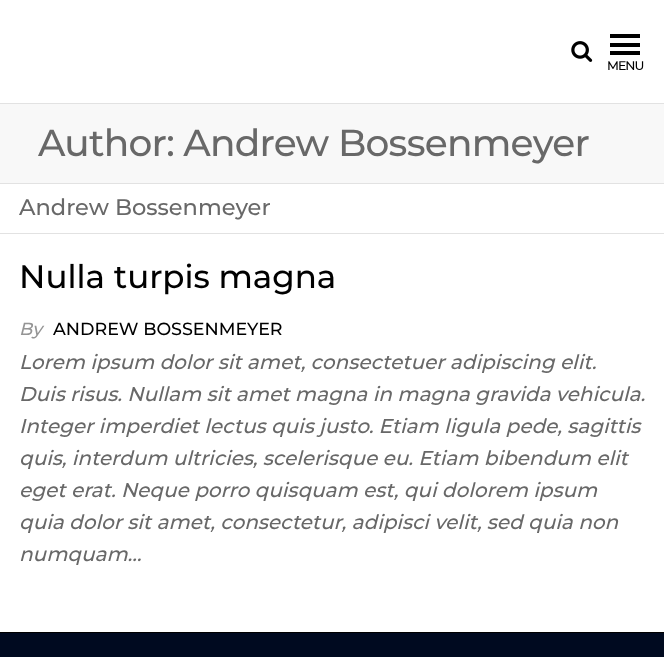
async function draw(canvas) {
  canvas.width = 664
  canvas.height = 657
  const ctx = canvas.getContext('2d')
  ctx.miterLimit = 4
  ctx.fontKerning = 'normal'
  async function loadImage(src) {
    const img = new Image()
    img.src = src
    await img.decode()
    return img
  }

  ctx.fillStyle = '#fff'
  ctx.fillRect(0, 0, 664, 657)
  ctx.fillStyle = '#e2e2e2'
  ctx.fillRect(0, 103, 664, 1)
  ctx.drawImage(await loadImage('image0.png'), 571, 41, 22, 21)
  ctx.fillStyle = '#000'
  ctx.fillRect(610, 34, 30, 4)
  ctx.fillRect(610, 43, 30, 4)
  ctx.fillRect(610, 51, 30, 4)
  ctx.letterSpacing = '-1px'
  ctx.font = '500 12.5px Montserrat'
  ctx.fillText('MENU', 607, 70)
  ctx.fillStyle = '#f8f8f8'
  ctx.fillRect(0, 104, 664, 79)
  ctx.fillStyle = '#e2e2e2'
  ctx.fillRect(0, 183, 664, 1)
  ctx.letterSpacing = '-0.75px'
  ctx.font = '500 37.5px Montserrat'
  ctx.fillStyle = '#686868'
  ctx.fillText('Author: Andrew Bossenmeyer', 38, 156)
  ctx.fillStyle = '#e2e2e2'
  ctx.fillRect(0, 233, 664, 1)
  ctx.letterSpacing = '0px'
  ctx.font = '500 22.5px Montserrat'
  ctx.fillStyle = '#686868'
  ctx.fillText('Andrew Bossenmeyer', 19, 215)
  ctx.font = '500 32.5px Montserrat'
  ctx.fillStyle = '#000'
  ctx.fillText('Nulla turpis magna', 19, 288)
  ctx.font = 'italic 500 17.5px Montserrat'
  ctx.fillStyle = '#959595'
  ctx.fillText('By', 19, 335)
  ctx.font = '500 17.5px Montserrat'
  ctx.fillStyle = '#000'
  ctx.fillText('ANDREW BOSSENMEYER', 53, 335)
  ctx.font = 'italic 500 20px Montserrat'
  ctx.fillStyle = '#686868'
  ctx.fillText('Lorem ipsum dolor sit amet, consectetuer adipiscing elit.', 19, 369)
  ctx.fillText('Duis risus. Nullam sit amet magna in magna gravida vehicula.', 19, 401)
  ctx.fillText('Integer imperdiet lectus quis justo. Etiam ligula pede, sagittis', 19, 433)
  ctx.fillText('quis, interdum ultricies, scelerisque eu. Etiam bibendum elit', 19, 465)
  ctx.fillText('eget erat. Neque porro quisquam est, qui dolorem ipsum', 19, 497)
  ctx.fillText('quia dolor sit amet, consectetur, adipisci velit, sed quia non', 19, 529)
  ctx.fillText('numquam…', 19, 561)
  ctx.fillStyle = '#000'
  ctx.fillRect(0, 632, 664, 1)
  ctx.fillStyle = '#000a20'
  ctx.fillRect(0, 633, 664, 24)
}

draw(document.querySelector('canvas'))
